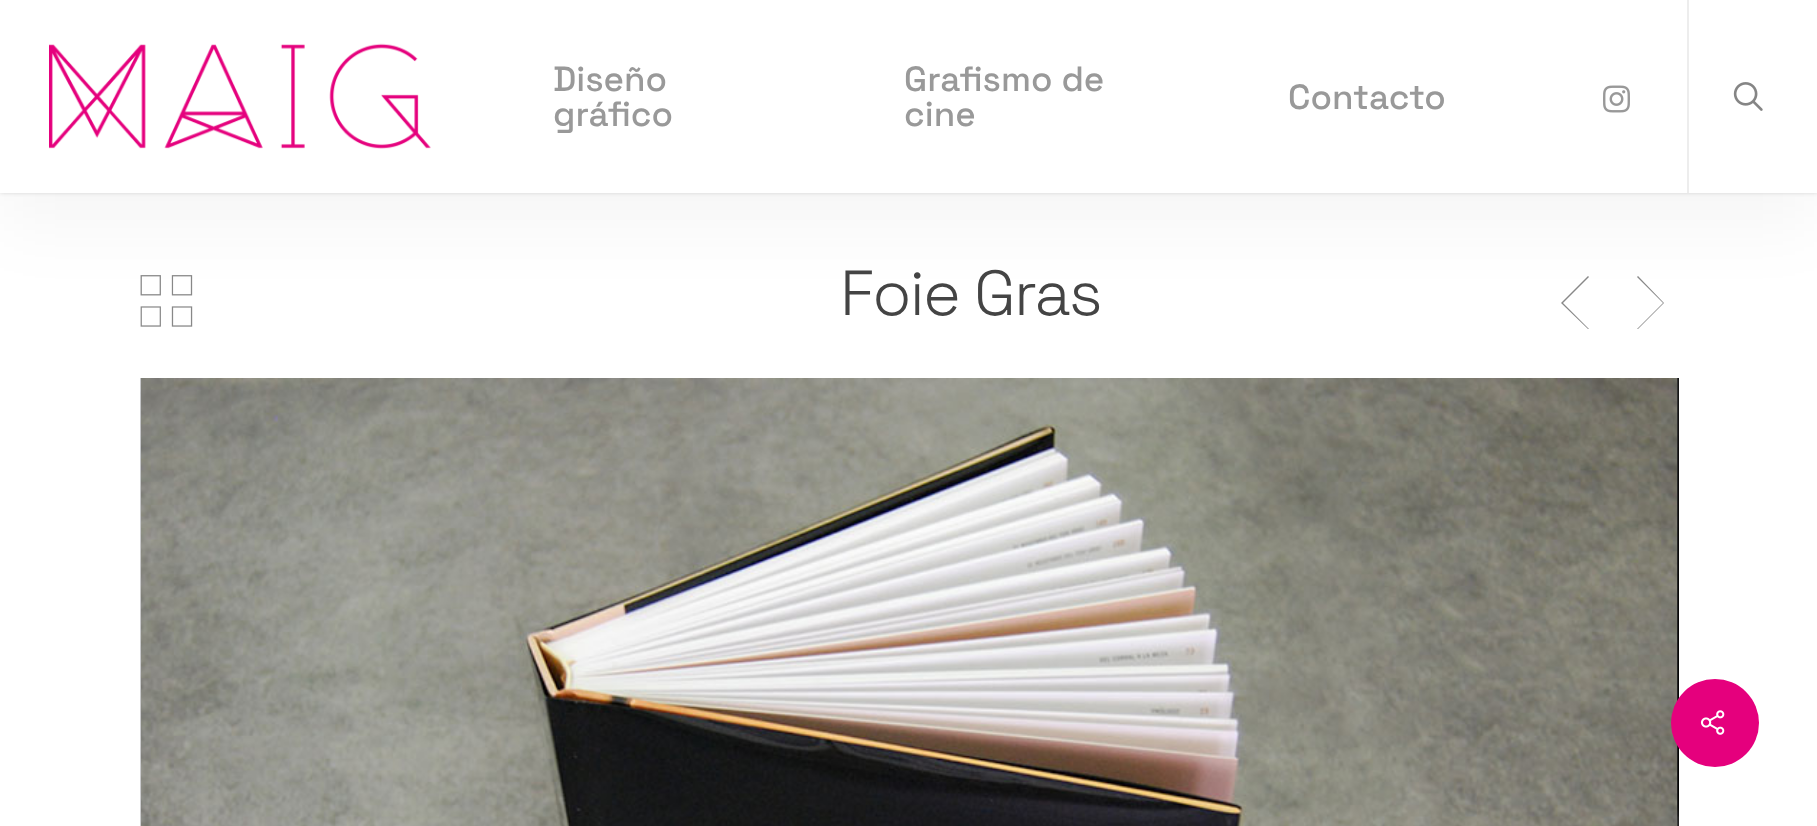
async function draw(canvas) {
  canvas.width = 1817
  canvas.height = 826
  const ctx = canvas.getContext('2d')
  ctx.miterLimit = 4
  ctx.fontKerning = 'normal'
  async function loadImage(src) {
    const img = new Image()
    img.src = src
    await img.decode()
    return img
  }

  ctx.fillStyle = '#fff'
  ctx.fillRect(0, 0, 1817, 826)
  ctx.drawImage(await loadImage('image3.png'), 140, 275, 53, 52)
  ctx.fillStyle = '#888'
  ctx.beginPath()
  ctx.moveTo(1589, 277)
  ctx.lineTo(1588, 276)
  ctx.lineTo(1561, 303)
  ctx.lineTo(1588, 329)
  ctx.lineTo(1589, 329)
  ctx.lineTo(1563, 303)
  ctx.closePath()
  ctx.fill()
  ctx.beginPath()
  ctx.moveTo(1637, 277)
  ctx.lineTo(1638, 276)
  ctx.lineTo(1664, 303)
  ctx.lineTo(1638, 329)
  ctx.lineTo(1637, 329)
  ctx.lineTo(1663, 303)
  ctx.closePath()
  ctx.fill()
  ctx.fillStyle = '#0000000a'
  ctx.filter = 'blur(35px)'
  ctx.beginPath()
  ctx.rect(0, 32, 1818, 192)
  ctx.fill()
  ctx.filter = 'none'
  ctx.fillStyle = '#00000024'
  ctx.filter = 'blur(2px)'
  ctx.beginPath()
  ctx.rect(0, 0, 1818, 193)
  ctx.fill()
  ctx.filter = 'none'
  ctx.fillStyle = '#fff'
  ctx.fillRect(0, 0, 1817, 193)
  ctx.drawImage(await loadImage('image0.png'), 49, 43, 382, 106)
  ctx.font = '500 35px Space Grotesk'
  ctx.fillStyle = '#999'
  ctx.fillText('Diseño', 553, 91)
  ctx.fillText('gráfico', 553, 126)
  ctx.fillText('Grafismo de', 904, 91)
  ctx.fillText('cine', 904, 126)
  ctx.fillText('Contacto', 1288, 109)
  ctx.drawImage(await loadImage('image1.png'), 1603, 85, 27, 28)
  ctx.fillStyle = '#ededed'
  ctx.fillRect(1687, 0, 2, 193)
  ctx.drawImage(await loadImage('image2.png'), 1733, 82, 30, 29)
  ctx.letterSpacing = '-1.75px'
  ctx.font = '300 63.5px Space Grotesk'
  ctx.fillStyle = '#444'
  ctx.fillText('Foie Gras', 840, 315)
  ctx.drawImage(await loadImage('image4.png'), 140, 378, 1, 448)
  ctx.drawImage(await loadImage('image5.png'), 141, 378, 1537, 448)
  ctx.drawImage(await loadImage('image6.png'), 1677, 378, 2, 448)
  ctx.fillStyle = '#e5007d'
  ctx.beginPath()
  ctx.arc(1715, 723, 44, 0, 2 * Math.PI)
  ctx.fill()
  ctx.drawImage(await loadImage('image7.png'), 1700, 710, 25, 25)
}

draw(document.querySelector('canvas'))
